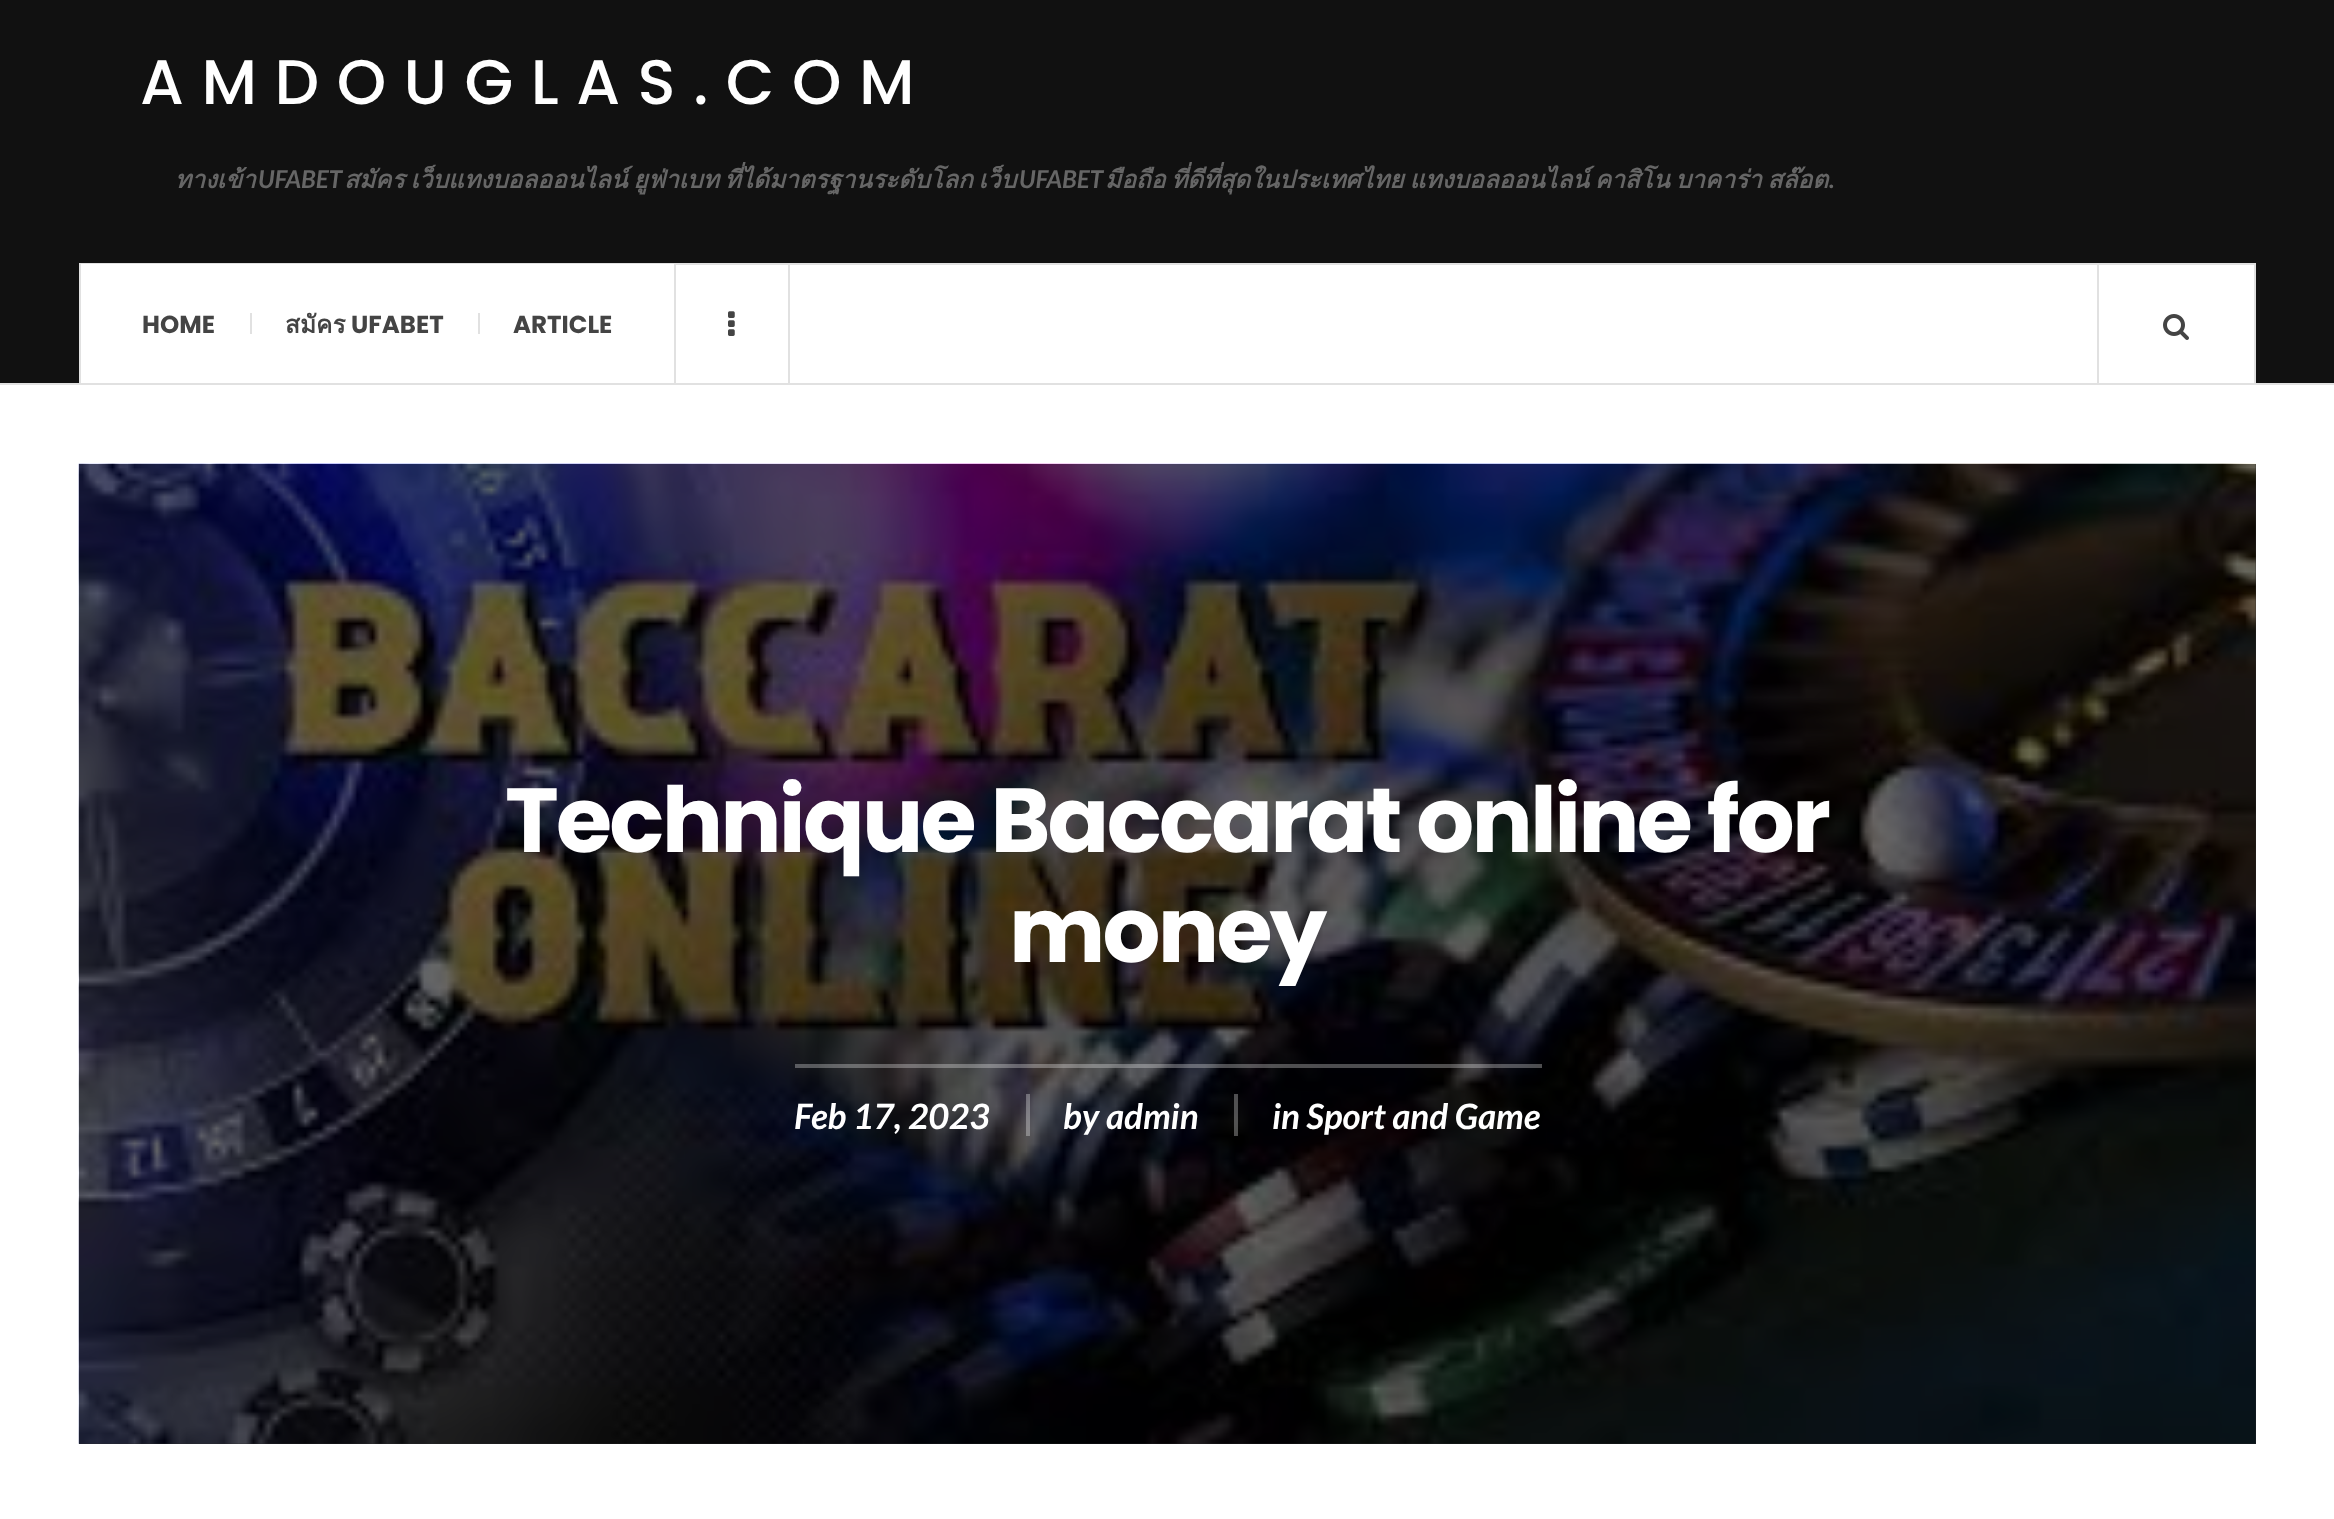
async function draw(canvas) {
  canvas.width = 2334
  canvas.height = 1519
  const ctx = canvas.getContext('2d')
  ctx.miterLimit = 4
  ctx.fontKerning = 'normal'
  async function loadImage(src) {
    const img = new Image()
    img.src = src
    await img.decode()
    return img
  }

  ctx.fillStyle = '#fff'
  ctx.fillRect(0, 0, 2334, 1519)
  ctx.fillStyle = '#111'
  ctx.fillRect(0, 0, 2334, 383)
  ctx.fillStyle = '#e1e1e1'
  ctx.fillRect(0, 383, 2334, 2)
  ctx.letterSpacing = '17.5px'
  ctx.font = '500 63px Poppins'
  ctx.fillStyle = '#fff'
  ctx.fillText('AMDOUGLAS.COM', 140, 104)
  ctx.letterSpacing = '0px'
  ctx.font = 'italic bold 24.5px Loma'
  ctx.fillStyle = '#666'
  ctx.fillText('ทางเข้า', 175, 188)
  ctx.font = 'italic bold 24.5px Lato'
  ctx.fillText('UFABET', 258, 188)
  ctx.wordSpacing = '-2.5px'
  ctx.font = 'italic bold 24.5px Loma'
  ctx.fillText('สมัคร เว็บแทงบอลออนไลน์ ยูฟ่าเบท ที่ได้มาตรฐานระดับโลก เว็บ', 344, 188)
  ctx.wordSpacing = '0px'
  ctx.font = 'italic bold 24.5px Lato'
  ctx.fillText('UFABET', 1019, 188)
  ctx.wordSpacing = '-2.5px'
  ctx.font = 'italic bold 24.5px Loma'
  ctx.fillText('มือถือ ที่ดีที่สุดในประเทศไทย แทงบอลออนไลน์ คาสิโน บาคาร่า สล๊อต', 1105, 188)
  ctx.wordSpacing = '0px'
  ctx.font = 'italic bold 24.5px Lato'
  ctx.fillText('.', 1829, 188)
  ctx.fillStyle = '#fff'
  ctx.fillRect(676, 265, 1578, 118)
  ctx.strokeStyle = '#e1e1e1'
  ctx.lineWidth = 2
  ctx.strokeRect(80, 264, 2175, 120)
  ctx.fillRect(81, 264, 593, 119)
  ctx.fillStyle = '#e1e1e1'
  ctx.fillRect(674, 264, 2, 119)
  ctx.font = 'bold 24.5px Poppins'
  ctx.fillStyle = '#444'
  ctx.fillText('HOME', 142, 333)
  ctx.fillStyle = '#e1e1e1'
  ctx.fillRect(250, 313, 2, 21)
  ctx.font = 'bold 24.5px Loma'
  ctx.fillStyle = '#444'
  ctx.fillText('สมัคร', 285, 333)
  ctx.font = 'bold 24.5px Poppins'
  ctx.fillText('UFABET', 351, 333)
  ctx.fillStyle = '#e1e1e1'
  ctx.fillRect(478, 313, 2, 21)
  ctx.fillStyle = '#444'
  ctx.fillText('ARTICLE', 513, 333)
  ctx.fillStyle = '#e1e1e1'
  ctx.fillRect(788, 264, 2, 119)
  ctx.drawImage(await loadImage('image0.png'), 728, 311, 7, 25)
  ctx.fillRect(2097, 264, 2, 119)
  ctx.drawImage(await loadImage('image1.png'), 2163, 314, 26, 26)
  ctx.fillStyle = '#292929'
  ctx.fillRect(79, 464, 2177, 980)
  ctx.drawImage(await loadImage('image2.png'), 78, 463, 2178, 981)
  ctx.letterSpacing = '-2.75px'
  ctx.font = 'bold 91px Poppins'
  ctx.fillStyle = '#fff'
  ctx.fillText('Technique Baccarat online for', 505, 852)
  ctx.fillText('money', 1009, 962)
  ctx.fillStyle = '#ffffff4d'
  ctx.fillRect(795, 1064, 747, 4)
  ctx.fillRect(1026, 1094, 4, 42)
  ctx.letterSpacing = '0px'
  ctx.font = 'italic bold 35px Lato'
  ctx.fillStyle = '#fff'
  ctx.fillText('Feb 17, 2023', 794, 1129)
  ctx.fillStyle = '#ffffff4d'
  ctx.fillRect(1234, 1094, 4, 42)
  ctx.fillStyle = '#fff'
  ctx.fillText('by admin', 1063, 1129)
  ctx.fillText('in Sport and Game', 1272, 1129)
}

draw(document.querySelector('canvas'))
